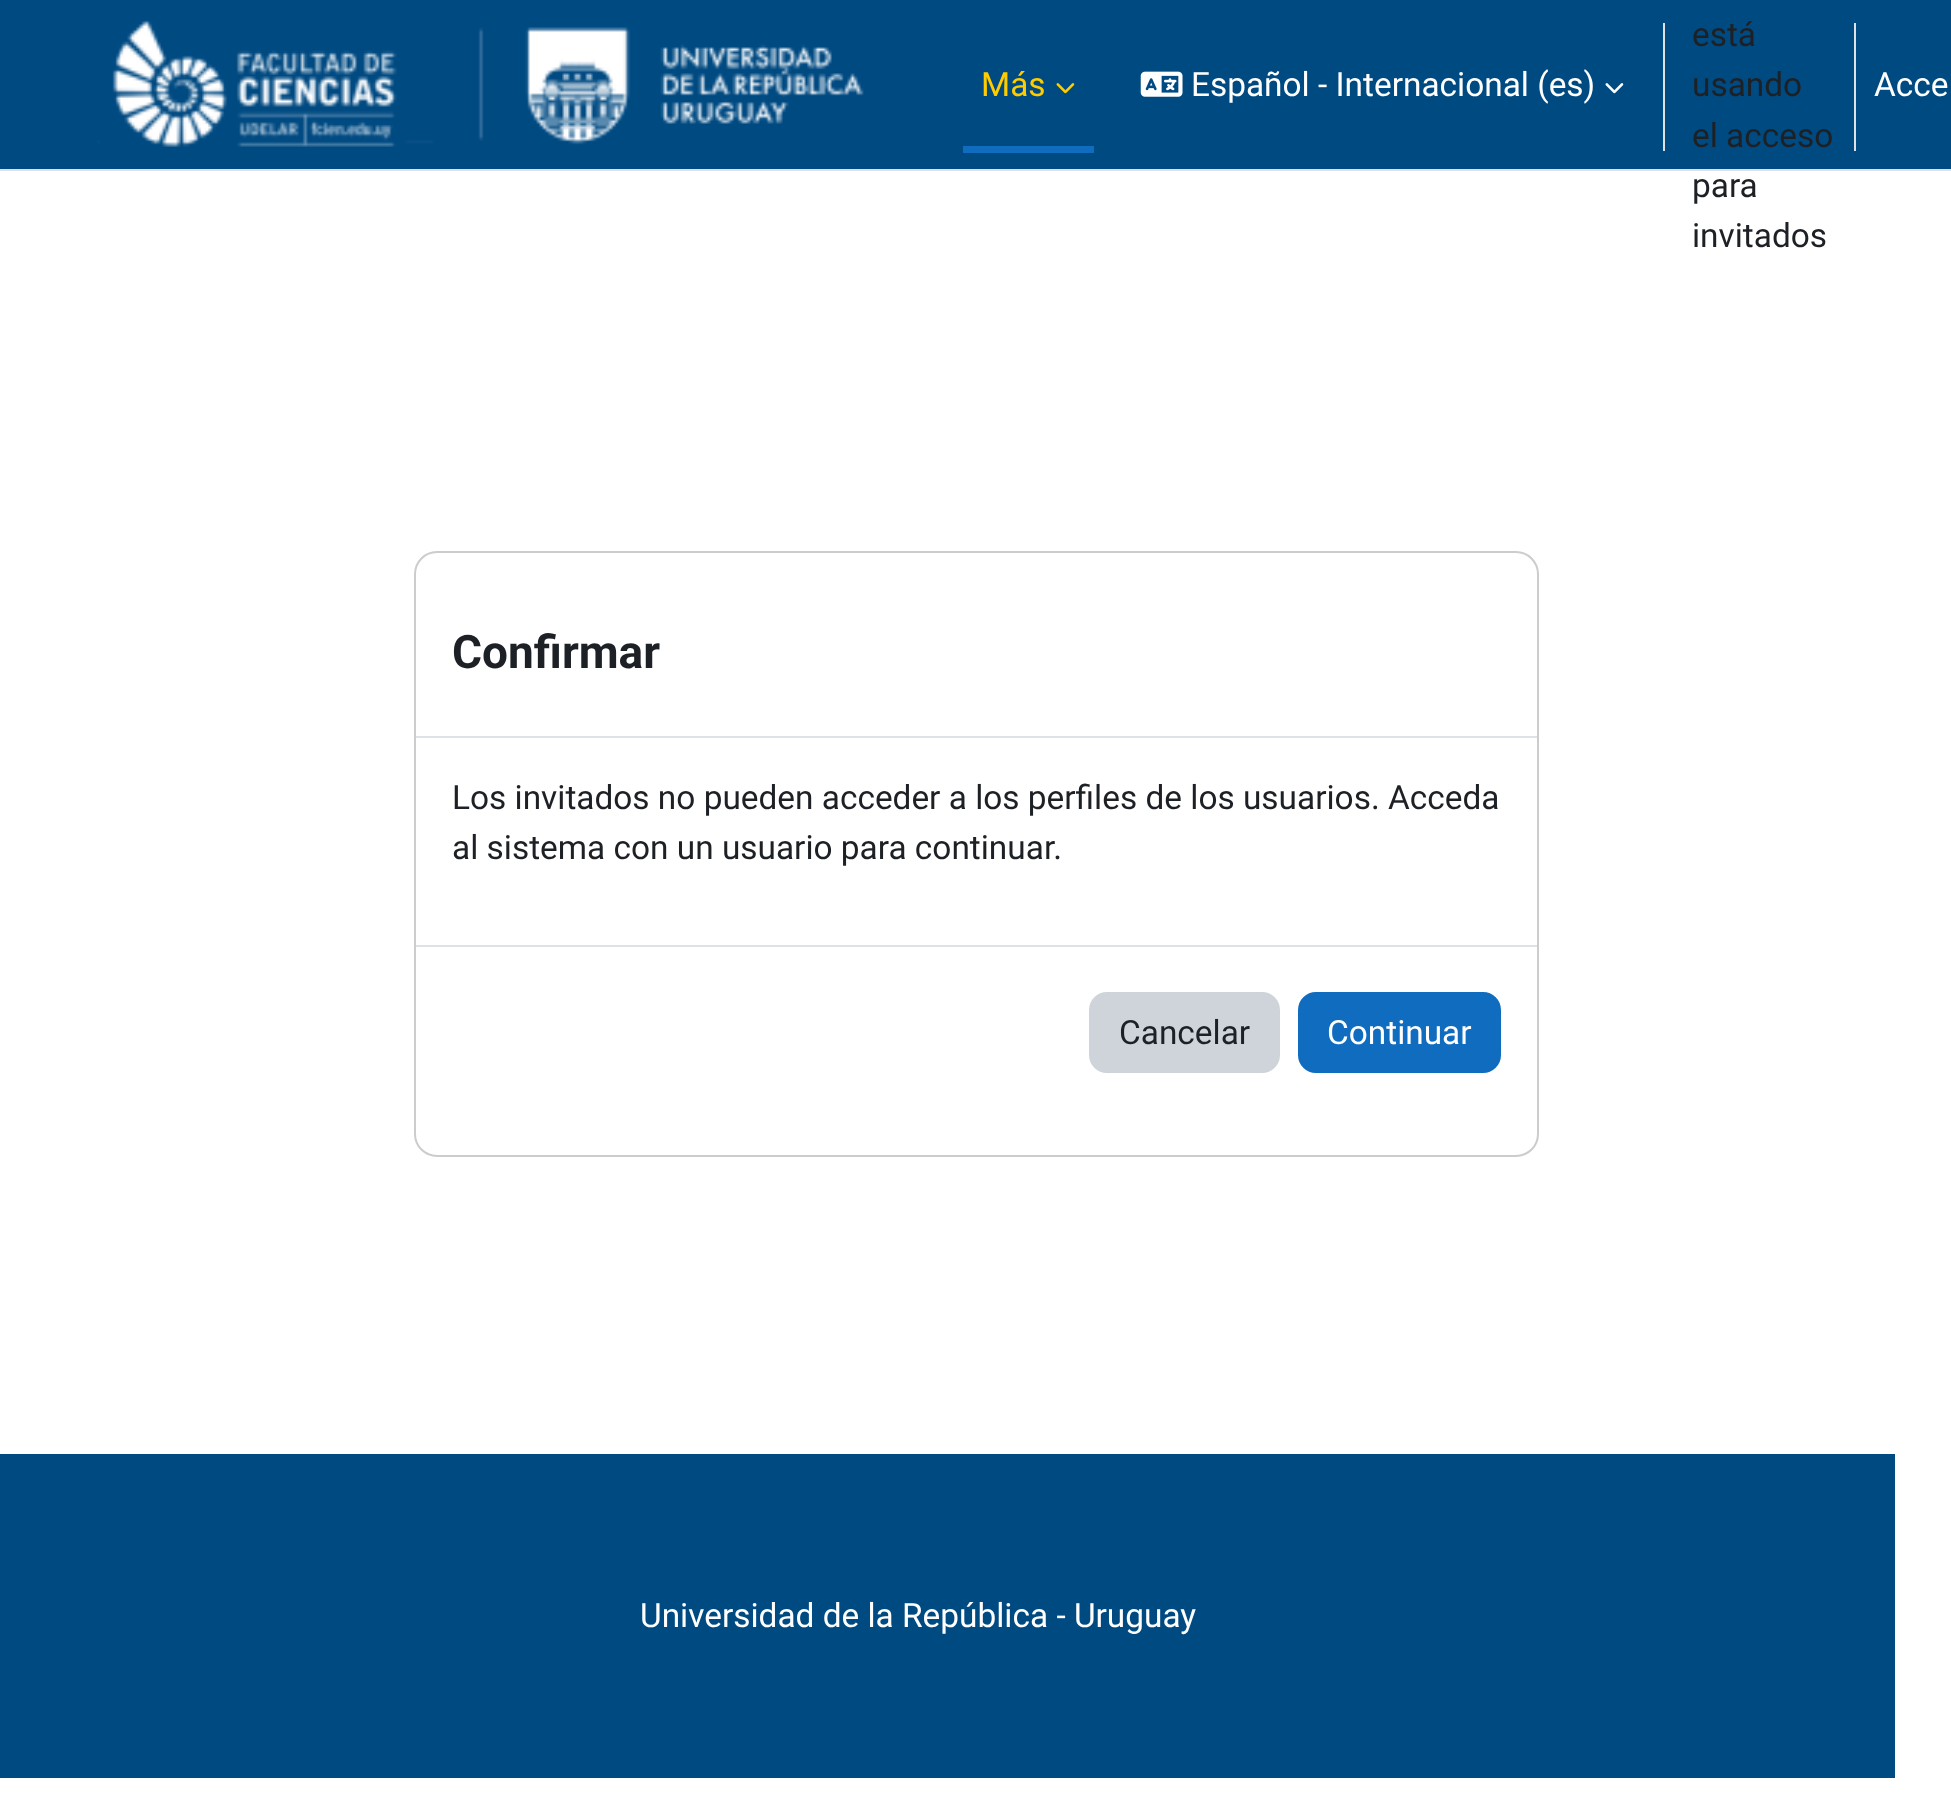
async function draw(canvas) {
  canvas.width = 1951
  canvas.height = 1798
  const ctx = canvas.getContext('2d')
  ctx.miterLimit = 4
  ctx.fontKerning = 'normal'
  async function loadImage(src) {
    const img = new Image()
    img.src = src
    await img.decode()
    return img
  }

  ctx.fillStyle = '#fff'
  ctx.fillRect(0, 0, 1951, 1798)
  ctx.fillStyle = '#004a82'
  ctx.fillRect(0, 0, 1951, 169)
  ctx.fillStyle = '#dee2e6'
  ctx.fillRect(0, 169, 1951, 2)
  ctx.drawImage(await loadImage('image0.png'), 97, 20, 767, 127)
  ctx.fillStyle = '#0f6cbf'
  ctx.fillRect(963, 146, 131, 7)
  ctx.font = '33.4px Roboto'
  ctx.fillStyle = '#fc0'
  ctx.fillText('Más', 981, 96)
  ctx.drawImage(await loadImage('image1.png'), 1056, 83, 19, 11)
  ctx.drawImage(await loadImage('image2.png'), 1140, 71, 43, 26)
  ctx.fillStyle = '#fff'
  ctx.fillText('Español - Internacional (es)', 1191, 96)
  ctx.drawImage(await loadImage('image3.png'), 1605, 83, 19, 11)
  ctx.fillStyle = '#dee2e6'
  ctx.fillRect(1663, 23, 2, 128)
  ctx.fillStyle = '#1d2125'
  ctx.fillText('está', 1692, 46)
  ctx.fillStyle = '#dee2e6'
  ctx.fillRect(1854, 23, 2, 128)
  ctx.fillStyle = '#1d2125'
  ctx.fillText('usando', 1692, 96)
  ctx.fillStyle = '#fff'
  ctx.fillText('Acce', 1874, 96)
  ctx.fillStyle = '#1d2125'
  ctx.fillText('el acceso', 1692, 147)
  ctx.fillText('para', 1692, 197)
  ctx.fillText('invitados', 1692, 247)
  ctx.beginPath()
  ctx.roundRect(415, 552, 1123, 604, 22)
  ctx.strokeStyle = '#ccc'
  ctx.lineWidth = 2
  ctx.stroke()
  ctx.fillStyle = '#dee2e6'
  ctx.fillRect(416, 736, 1121, 2)
  ctx.font = 'bold 46px Roboto'
  ctx.fillStyle = '#1d2125'
  ctx.fillText('Confirmar', 452, 668)
  ctx.font = '33.4px Roboto'
  ctx.fillText('Los invitados no pueden acceder a los perfiles de los usuarios. Acceda', 452, 809)
  ctx.fillText('al sistema con un usuario para continuar.', 452, 859)
  ctx.fillStyle = '#dee2e6'
  ctx.fillRect(416, 945, 1121, 2)
  ctx.fillStyle = '#ced4da'
  ctx.beginPath()
  ctx.roundRect(1090, 993, 189, 79, 17)
  ctx.fill()
  ctx.strokeStyle = '#ced4da'
  ctx.stroke()
  ctx.fillStyle = '#1d2125'
  ctx.fillText('Cancelar', 1119, 1044)
  ctx.fillStyle = '#0f6cbf'
  ctx.beginPath()
  ctx.roundRect(1299, 993, 201, 79, 17)
  ctx.fill()
  ctx.strokeStyle = '#0f6cbf'
  ctx.stroke()
  ctx.fillStyle = '#fff'
  ctx.fillText('Continuar', 1327, 1044)
  ctx.fillStyle = '#004a82'
  ctx.fillRect(0, 1454, 1895, 324)
  ctx.fillStyle = '#fff'
  ctx.fillText('Universidad de la República - Uruguay', 640, 1627)
}

draw(document.querySelector('canvas'))
